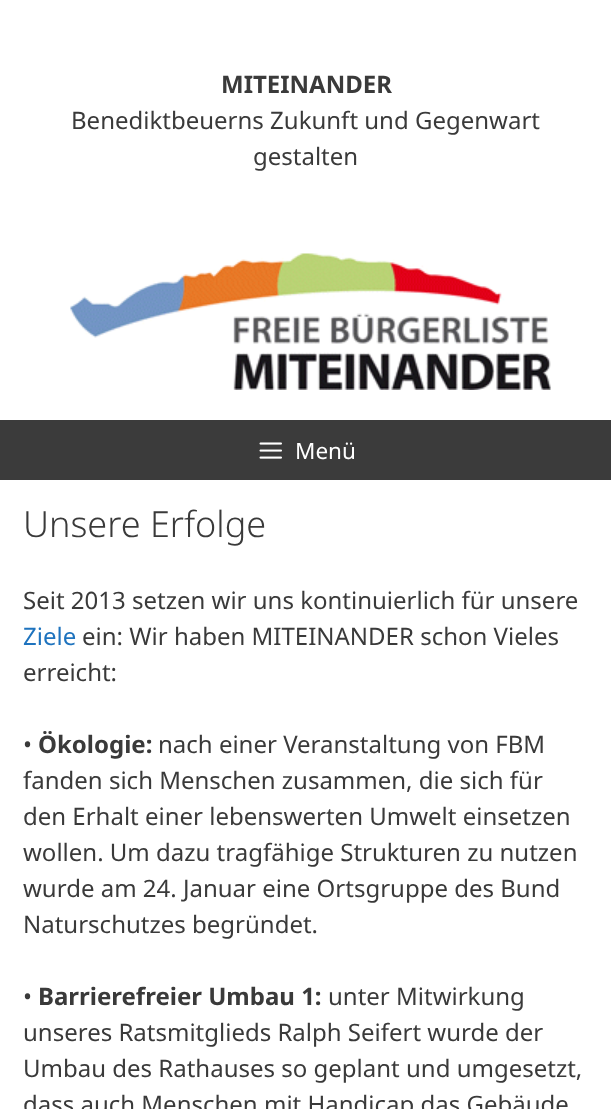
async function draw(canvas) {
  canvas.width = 611
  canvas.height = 1109
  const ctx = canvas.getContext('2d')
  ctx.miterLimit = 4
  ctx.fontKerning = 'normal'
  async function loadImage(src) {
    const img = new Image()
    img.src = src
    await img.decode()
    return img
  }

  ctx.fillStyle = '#fff'
  ctx.fillRect(0, 0, 611, 1109)
  ctx.font = 'bold 24px Noto Sans'
  ctx.fillStyle = '#3a3a3a'
  ctx.fillText('MITEINANDER', 221, 93)
  ctx.font = '24px Noto Sans'
  ctx.fillText('Benediktbeuerns Zukunft und Gegenwart', 71, 129)
  ctx.fillText('gestalten', 253, 165)
  ctx.drawImage(await loadImage('image0.png'), 70, 253, 481, 137)
  ctx.fillStyle = '#3b3b3b'
  ctx.fillRect(0, 420, 611, 60)
  ctx.drawImage(await loadImage('image1.png'), 259, 442, 23, 17)
  ctx.font = '22.5px Noto Sans'
  ctx.fillStyle = '#fff'
  ctx.fillText('Menü', 295, 459)
  ctx.font = '300 36px Noto Sans'
  ctx.fillStyle = '#3a3a3a'
  ctx.fillText('Unsere Erfolge', 23, 537)
  ctx.font = '24px Noto Sans'
  ctx.fillText('Seit 2013 setzen wir uns kontinuierlich für unsere', 23, 609)
  ctx.fillStyle = '#1e73be'
  ctx.fillText('Ziele', 23, 645)
  ctx.fillStyle = '#3a3a3a'
  ctx.fillText('ein: Wir haben MITEINANDER schon Vieles', 82, 645)
  ctx.fillText('erreicht:', 23, 681)
  ctx.fillText('•', 23, 753)
  ctx.font = 'bold 24px Noto Sans'
  ctx.fillText('Ökologie:', 38, 753)
  ctx.font = '24px Noto Sans'
  ctx.fillText('nach einer Veranstaltung von FBM', 158, 753)
  ctx.fillText('fanden sich Menschen zusammen, die sich für', 23, 789)
  ctx.fillText('den Erhalt einer lebenswerten Umwelt einsetzen', 23, 825)
  ctx.fillText('wollen. Um dazu tragfähige Strukturen zu nutzen', 23, 861)
  ctx.fillText('wurde am 24. Januar eine Ortsgruppe des Bund', 23, 897)
  ctx.fillText('Naturschutzes begründet.', 23, 933)
  ctx.fillText('•', 23, 1005)
  ctx.font = 'bold 24px Noto Sans'
  ctx.fillText('Barrierefreier Umbau 1:', 38, 1005)
  ctx.font = '24px Noto Sans'
  ctx.fillText('unter Mitwirkung', 328, 1005)
  ctx.fillText('unseres Ratsmitglieds Ralph Seifert wurde der', 23, 1041)
  ctx.fillText('Umbau des Rathauses so geplant und umgesetzt,', 23, 1077)
  ctx.fillText('dass auch Menschen mit Handicap das Gebäude', 23, 1113)
}

draw(document.querySelector('canvas'))
